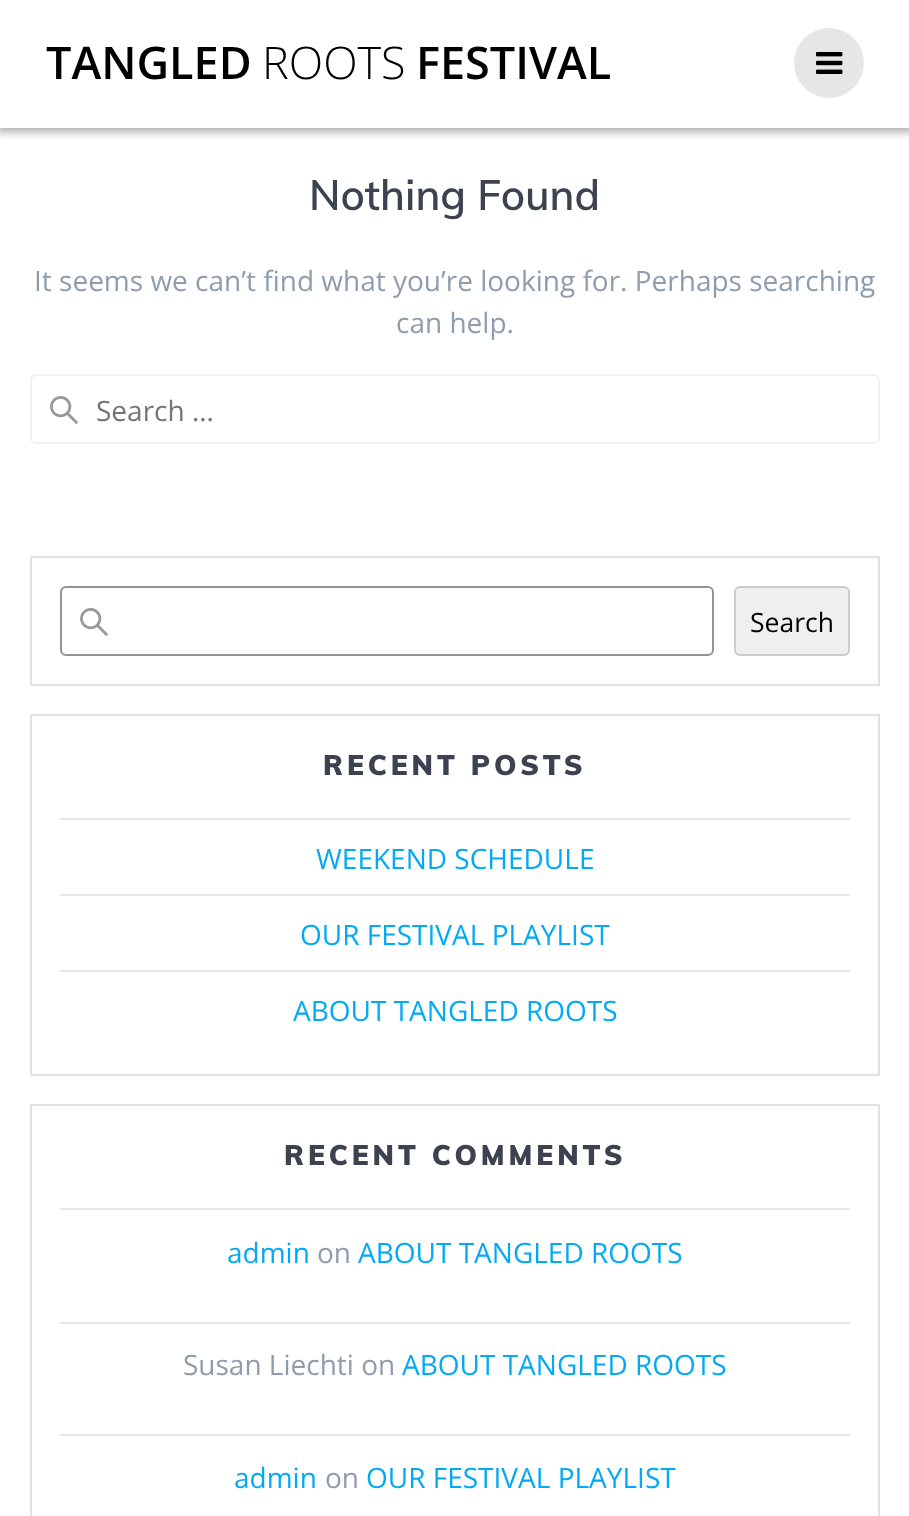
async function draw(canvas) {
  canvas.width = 909
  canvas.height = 1516
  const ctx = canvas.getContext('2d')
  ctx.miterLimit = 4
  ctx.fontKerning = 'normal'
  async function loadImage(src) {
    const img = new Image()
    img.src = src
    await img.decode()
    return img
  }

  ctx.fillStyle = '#fff'
  ctx.fillRect(0, 0, 909, 1516)
  ctx.fillStyle = '#00000054'
  ctx.filter = 'blur(5px)'
  ctx.beginPath()
  ctx.rect(-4, -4, 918, 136)
  ctx.fill()
  ctx.filter = 'none'
  ctx.fillStyle = '#fff'
  ctx.fillRect(0, 0, 909, 128)
  ctx.font = '600 45px Open Sans'
  ctx.fillStyle = '#000'
  ctx.fillText('TANGLED', 46, 79)
  ctx.font = '300 45px Open Sans'
  ctx.fillText('ROOTS', 262, 79)
  ctx.font = '600 45px Open Sans'
  ctx.fillText('FESTIVAL', 416, 79)
  ctx.fillStyle = '#e6e6e6'
  ctx.beginPath()
  ctx.arc(829, 63, 35, 0, 2 * Math.PI)
  ctx.fill()
  ctx.drawImage(await loadImage('image0.png'), 816, 52, 27, 22)
  ctx.font = '600 42px Muli'
  ctx.fillStyle = '#3c424f'
  ctx.fillText('Nothing Found', 309, 210)
  ctx.font = '28px Open Sans'
  ctx.fillStyle = '#8e9dae'
  ctx.fillText('It seems we can’t find what you’re looking for. Perhaps searching', 34, 291)
  ctx.fillText('can help.', 396, 333)
  ctx.drawImage(await loadImage('image1.png'), 50, 396, 28, 28)
  ctx.beginPath()
  ctx.roundRect(31, 375, 848, 68, 5)
  ctx.strokeStyle = '#f1f1f1'
  ctx.lineWidth = 2
  ctx.stroke()
  ctx.fillStyle = '#757575'
  ctx.fillText('Search …', 96, 421)
  ctx.strokeStyle = '#e0e1e1'
  ctx.strokeRect(31, 557, 848, 128)
  ctx.drawImage(await loadImage('image1.png'), 80, 608, 28, 28)
  ctx.beginPath()
  ctx.roundRect(61, 587, 652, 68, 5)
  ctx.strokeStyle = '#949494'
  ctx.stroke()
  ctx.fillStyle = '#efefef'
  ctx.beginPath()
  ctx.roundRect(735, 587, 114, 68, 5)
  ctx.fill()
  ctx.strokeStyle = '#ccc'
  ctx.stroke()
  ctx.font = '26.5px Open Sans'
  ctx.fillStyle = '#000'
  ctx.fillText('Search', 750, 632)
  ctx.strokeStyle = '#e0e1e1'
  ctx.strokeRect(31, 715, 848, 360)
  ctx.letterSpacing = '3.9px'
  ctx.font = '900 28px Muli'
  ctx.fillStyle = '#3c424f'
  ctx.fillText('RECENT POSTS', 323, 775)
  ctx.fillStyle = '#e6e6e6'
  ctx.fillRect(60, 818, 790, 2)
  ctx.letterSpacing = '0px'
  ctx.font = '28px Open Sans'
  ctx.fillStyle = '#03a9f4'
  ctx.fillText('WEEKEND SCHEDULE', 316, 869)
  ctx.fillStyle = '#e6e6e6'
  ctx.fillRect(60, 894, 790, 2)
  ctx.fillStyle = '#03a9f4'
  ctx.fillText('OUR FESTIVAL PLAYLIST', 300, 945)
  ctx.fillStyle = '#e6e6e6'
  ctx.fillRect(60, 970, 790, 2)
  ctx.fillStyle = '#03a9f4'
  ctx.fillText('ABOUT TANGLED ROOTS', 293, 1021)
  ctx.strokeRect(31, 1105, 848, 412)
  ctx.letterSpacing = '3.9px'
  ctx.font = '900 28px Muli'
  ctx.fillStyle = '#3c424f'
  ctx.fillText('RECENT COMMENTS', 284, 1165)
  ctx.fillStyle = '#e6e6e6'
  ctx.fillRect(60, 1208, 790, 2)
  ctx.letterSpacing = '0px'
  ctx.font = '28px Open Sans'
  ctx.fillStyle = '#03a9f4'
  ctx.fillText('admin', 227, 1263)
  ctx.fillStyle = '#8e9dae'
  ctx.fillText('on', 317, 1263)
  ctx.fillStyle = '#03a9f4'
  ctx.fillText('ABOUT TANGLED ROOTS', 358, 1263)
  ctx.fillStyle = '#e6e6e6'
  ctx.fillRect(60, 1322, 790, 2)
  ctx.fillStyle = '#8e9dae'
  ctx.fillText('Susan Liechti on', 183, 1375)
  ctx.fillStyle = '#03a9f4'
  ctx.fillText('ABOUT TANGLED ROOTS', 402, 1375)
  ctx.fillStyle = '#e6e6e6'
  ctx.fillRect(60, 1434, 790, 2)
  ctx.fillStyle = '#03a9f4'
  ctx.fillText('admin', 234, 1488)
  ctx.fillStyle = '#8e9dae'
  ctx.fillText('on', 325, 1488)
  ctx.fillStyle = '#03a9f4'
  ctx.fillText('OUR FESTIVAL PLAYLIST', 366, 1488)
}

draw(document.querySelector('canvas'))
